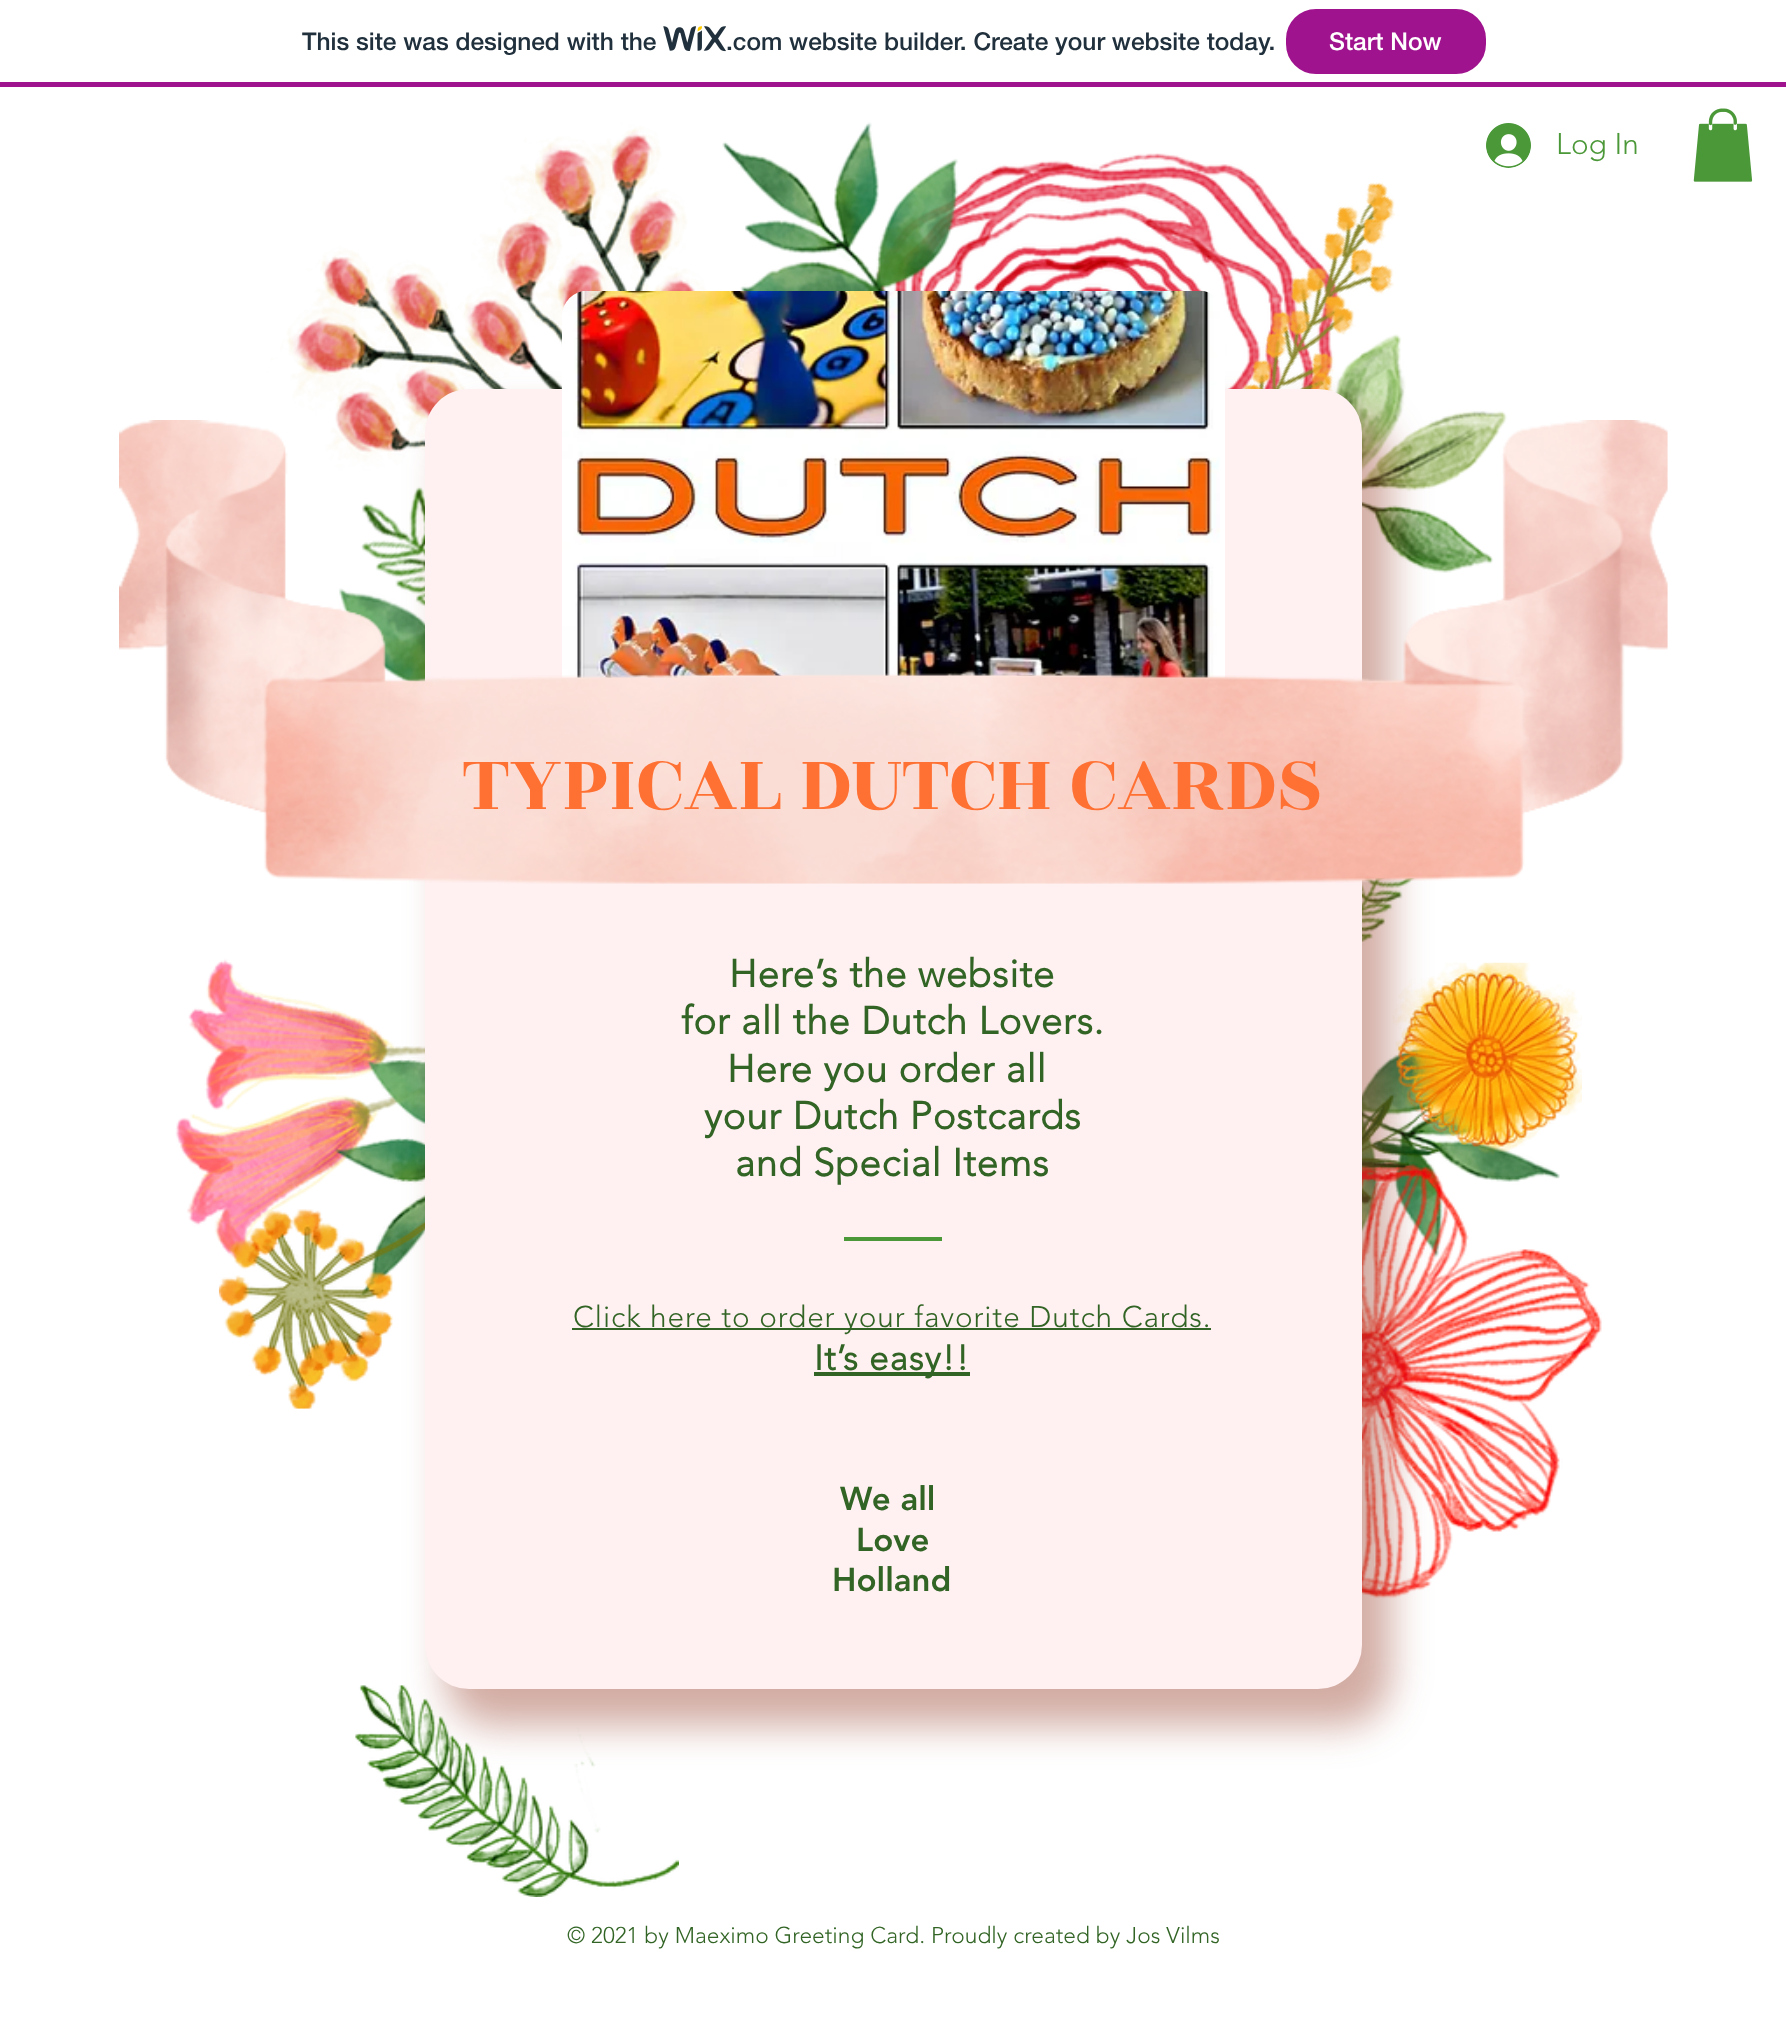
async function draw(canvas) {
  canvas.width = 1786
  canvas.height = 2023
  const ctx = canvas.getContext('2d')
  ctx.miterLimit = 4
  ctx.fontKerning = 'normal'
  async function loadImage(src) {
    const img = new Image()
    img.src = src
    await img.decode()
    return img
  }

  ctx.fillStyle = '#fff'
  ctx.fillRect(0, 0, 1786, 2023)
  ctx.fillStyle = '#a0138e'
  ctx.fillRect(0, 82, 1786, 5)
  ctx.font = '500 24.5px "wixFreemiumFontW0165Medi"'
  ctx.fillStyle = '#20303c'
  ctx.fillText('This site was designed with the', 302, 50)
  ctx.drawImage(await loadImage('image0.png'), 663, 26, 63, 26)
  ctx.fillText('.com website builder. Create your website today.', 726, 50)
  ctx.fillStyle = '#a0138e'
  ctx.beginPath()
  ctx.roundRect(1287, 10, 198, 63, 29)
  ctx.fill()
  ctx.strokeStyle = '#a0138e'
  ctx.lineWidth = 2
  ctx.stroke()
  ctx.fillStyle = '#fff'
  ctx.fillText('Start Now', 1329, 50)
  ctx.drawImage(await loadImage('image3.png'), 175, 122, 1427, 1477)
  ctx.drawImage(await loadImage('image1.png'), 1486, 123, 45, 45)
  ctx.font = '300 29.75px "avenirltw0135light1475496"'
  ctx.fillStyle = '#4b9838'
  ctx.fillText('Log In', 1556, 154)
  ctx.drawImage(await loadImage('image2.png'), 1693, 108, 60, 74)
  ctx.drawImage(await loadImage('image4.png'), 1243, 182, 152, 210)
  ctx.drawImage(await loadImage('image7.png'), 1362, 962, 220, 243)
  ctx.drawImage(await loadImage('image8.png'), 218, 1209, 207, 200)
  ctx.fillStyle = '#9b473473'
  ctx.filter = 'blur(19px)'
  ctx.beginPath()
  ctx.roundRect(445, 415, 946, 1311, 49)
  ctx.fill()
  ctx.filter = 'none'
  ctx.fillStyle = '#fff0f1'
  ctx.beginPath()
  ctx.roundRect(425, 389, 937, 1300, 44)
  ctx.fill()
  ctx.fillStyle = '#fff'
  ctx.beginPath()
  ctx.roundRect(562, 291, 663, 411, 26)
  ctx.fill()
  ctx.drawImage(await loadImage('image6.png'), 562, 291, 658, 387)
  ctx.drawImage(await loadImage('image5.png'), 119, 420, 1549, 464)
  ctx.font = '84px Rozha One'
  ctx.fillStyle = '#ff7133'
  ctx.fillText('TYPICAL DUTCH CARDS', 462, 809)
  ctx.letterSpacing = '0.75px'
  ctx.font = 'bold 38.5px "avenirltw0135light1475496"'
  ctx.fillStyle = '#326525'
  ctx.fillText('Here’s the website', 729, 987)
  ctx.fillText('for all the Dutch Lovers.', 681, 1034)
  ctx.fillText('Here you order all', 727, 1082)
  ctx.fillText('your Dutch Postcards', 704, 1129)
  ctx.fillText('and Special Items', 735, 1176)
  ctx.fillStyle = '#4b9838'
  ctx.fillRect(844, 1237, 98, 4)
  ctx.fillStyle = '#326525'
  ctx.fillRect(572, 1328, 639, 2)
  ctx.letterSpacing = '0.9px'
  ctx.font = '300 29.75px "avenirltw0135light1475496"'
  ctx.fillText('Click here to order your favorite Dutch Cards.', 573, 1327)
  ctx.fillRect(814, 1372, 156, 4)
  ctx.letterSpacing = '1px'
  ctx.font = 'bold 35px "avenirltw0135light1475496"'
  ctx.fillText('It’s easy!!', 814, 1370)
  ctx.letterSpacing = '0px'
  ctx.font = '900 33px "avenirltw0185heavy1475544"'
  ctx.fillText('We all', 840, 1510)
  ctx.fillText('Love', 856, 1551)
  ctx.fillText('Holland', 832, 1591)
  ctx.drawImage(await loadImage('image9.png'), 355, 1685, 324, 212)
  ctx.font = '300 22.75px "avenirltw0135light1475496"'
  ctx.fillText('© 2021 by Maeximo Greeting Card. Proudly created by Jos Vilms', 567, 1943)
}

draw(document.querySelector('canvas'))
